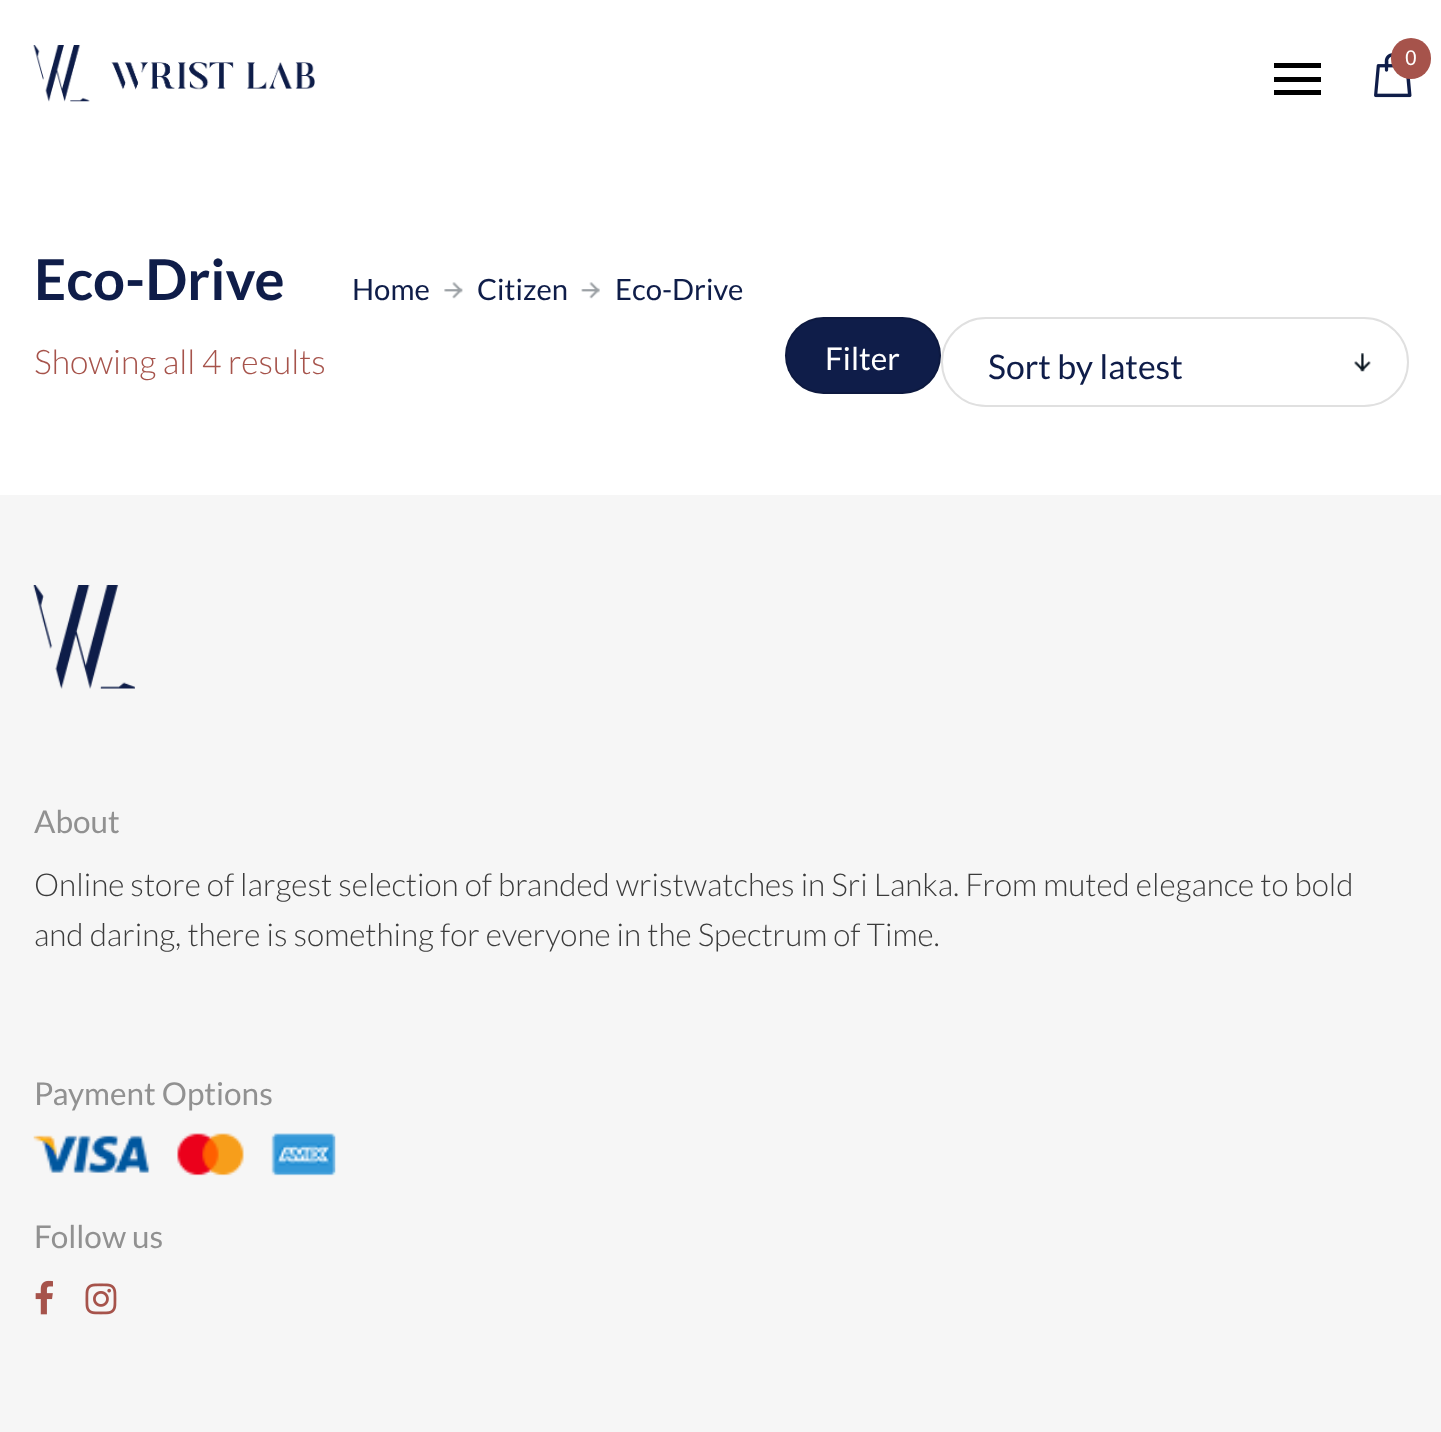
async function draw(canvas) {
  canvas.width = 1441
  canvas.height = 1432
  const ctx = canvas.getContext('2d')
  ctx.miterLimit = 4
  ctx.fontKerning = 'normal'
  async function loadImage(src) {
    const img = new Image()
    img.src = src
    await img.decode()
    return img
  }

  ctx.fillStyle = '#fff'
  ctx.fillRect(0, 0, 1441, 1432)
  ctx.drawImage(await loadImage('image0.png'), 33, 45, 282, 57)
  ctx.drawImage(await loadImage('image1.png'), 1374, 53, 38, 45)
  ctx.fillStyle = '#a6534b'
  ctx.beginPath()
  ctx.roundRect(1391, 38, 40, 41, 20)
  ctx.fill()
  ctx.font = '21px Liberation Sans'
  ctx.fillStyle = '#fff'
  ctx.fillText('0', 1405, 65)
  ctx.fillStyle = '#000'
  ctx.fillRect(1274, 77, 47, 5)
  ctx.fillRect(1274, 63, 47, 5)
  ctx.fillRect(1274, 90, 47, 5)
  ctx.font = 'bold 56.25px Lato'
  ctx.fillStyle = '#0f1d49'
  ctx.fillText('Eco-Drive', 34, 300)
  ctx.font = '29.25px Lato'
  ctx.fillText('Home', 352, 300)
  ctx.drawImage(await loadImage('image2.png'), 444, 282, 19, 17)
  ctx.fillText('Citizen', 477, 300)
  ctx.drawImage(await loadImage('image3.png'), 581, 282, 19, 17)
  ctx.fillText('Eco-Drive', 615, 300)
  ctx.font = '300 33.75px Lato'
  ctx.fillStyle = '#a6534b'
  ctx.fillText('Showing all 4 results', 34, 374)
  ctx.fillStyle = '#0f1d49'
  ctx.beginPath()
  ctx.roundRect(785, 317, 156, 77, 38.5)
  ctx.fill()
  ctx.beginPath()
  ctx.roundRect(786, 318, 154, 75, 37.5)
  ctx.strokeStyle = '#0000001f'
  ctx.lineWidth = 2
  ctx.stroke()
  ctx.font = '31.5px Lato'
  ctx.fillStyle = '#fff'
  ctx.fillText('Filter', 825, 370)
  ctx.drawImage(await loadImage('image4.png'), 1354, 353, 17, 19)
  ctx.beginPath()
  ctx.roundRect(942, 318, 466, 88, 44)
  ctx.strokeStyle = '#e0e0e0'
  ctx.stroke()
  ctx.font = '33.75px Lato'
  ctx.fillStyle = '#0f1d49'
  ctx.fillText('Sort by latest', 988, 379)
  ctx.fillStyle = '#f6f6f6'
  ctx.fillRect(0, 495, 1441, 937)
  ctx.drawImage(await loadImage('image5.png'), 33, 585, 102, 104)
  ctx.font = '31.5px Lato'
  ctx.fillStyle = '#919191'
  ctx.fillText('About', 34, 833)
  ctx.font = '300 31.5px Lato'
  ctx.fillStyle = '#3b3b3b'
  ctx.fillText('Online store of largest selection of branded wristwatches in Sri Lanka. From muted elegance to bold', 34, 896)
  ctx.fillText('and daring, there is something for everyone in the Spectrum of Time.', 34, 946)
  ctx.font = '31.5px Lato'
  ctx.fillStyle = '#919191'
  ctx.fillText('Payment Options', 34, 1105)
  ctx.drawImage(await loadImage('image6.png'), 33, 1133, 303, 43)
  ctx.fillText('Follow us', 34, 1248)
  ctx.drawImage(await loadImage('image7.png'), 35, 1280, 18, 35)
  ctx.drawImage(await loadImage('image8.png'), 85, 1283, 32, 32)
}

draw(document.querySelector('canvas'))
